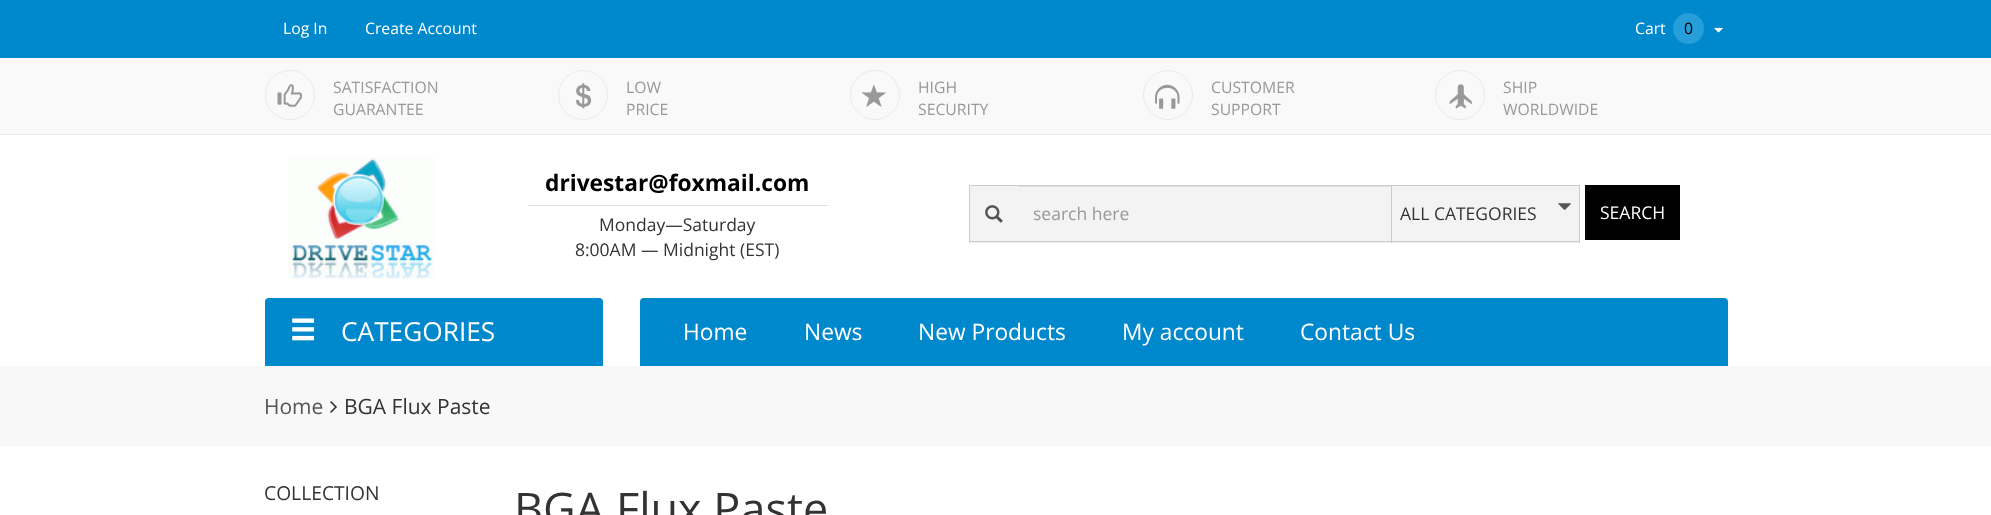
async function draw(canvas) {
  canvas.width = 1991
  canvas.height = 515
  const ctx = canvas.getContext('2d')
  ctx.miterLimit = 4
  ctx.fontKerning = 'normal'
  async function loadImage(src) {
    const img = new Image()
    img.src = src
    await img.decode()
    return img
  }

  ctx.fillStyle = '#fff'
  ctx.fillRect(0, 0, 1991, 515)
  ctx.fillStyle = '#08c'
  ctx.fillRect(0, 0, 1991, 58)
  ctx.font = '15.75px Open Sans'
  ctx.fillStyle = '#fff'
  ctx.fillText('Log In', 283, 34)
  ctx.fillText('Create Account', 365, 34)
  ctx.fillText('Cart', 1635, 34)
  ctx.fillStyle = '#269eda'
  ctx.beginPath()
  ctx.arc(1688.5, 28.5, 15.5, 0, 2 * Math.PI)
  ctx.fill()
  ctx.fillStyle = '#000'
  ctx.fillText('0', 1684, 34)
  ctx.drawImage(await loadImage('image0.png'), 1714, 27, 9, 6)
  ctx.fillStyle = '#f9f9f9'
  ctx.fillRect(0, 58, 1991, 76)
  ctx.fillStyle = '#eaeaea'
  ctx.fillRect(0, 134, 1991, 1)
  ctx.beginPath()
  ctx.arc(290, 95, 24.5, 0, 2 * Math.PI)
  ctx.strokeStyle = '#eaeaea'
  ctx.stroke()
  ctx.drawImage(await loadImage('image1.png'), 277, 84, 25, 23)
  ctx.fillStyle = '#999'
  ctx.fillText('SATISFACTION', 333, 93)
  ctx.fillText('GUARANTEE', 333, 115)
  ctx.beginPath()
  ctx.arc(583, 95, 24.5, 0, 2 * Math.PI)
  ctx.stroke()
  ctx.drawImage(await loadImage('image2.png'), 576, 83, 16, 26)
  ctx.fillText('LOW', 626, 93)
  ctx.fillText('PRICE', 626, 115)
  ctx.beginPath()
  ctx.arc(875, 95, 24.5, 0, 2 * Math.PI)
  ctx.stroke()
  ctx.drawImage(await loadImage('image3.png'), 861, 84, 25, 23)
  ctx.fillText('HIGH', 918, 93)
  ctx.fillText('SECURITY', 918, 115)
  ctx.beginPath()
  ctx.arc(1168, 95, 24.5, 0, 2 * Math.PI)
  ctx.stroke()
  ctx.drawImage(await loadImage('image4.png'), 1155, 84, 25, 25)
  ctx.fillText('CUSTOMER', 1211, 93)
  ctx.fillText('SUPPORT', 1211, 115)
  ctx.beginPath()
  ctx.arc(1460, 95, 24.5, 0, 2 * Math.PI)
  ctx.stroke()
  ctx.drawImage(await loadImage('image5.png'), 1449, 84, 23, 25)
  ctx.fillText('SHIP', 1503, 93)
  ctx.fillText('WORLDWIDE', 1503, 115)
  ctx.drawImage(await loadImage('image6.png'), 288, 157, 147, 122)
  ctx.fillStyle = '#e1e1e1'
  ctx.fillRect(528, 205, 300, 1)
  ctx.font = 'bold 22.75px Open Sans'
  ctx.fillStyle = '#000'
  ctx.fillText('drivestar@foxmail.com', 545, 191)
  ctx.font = '17.5px Open Sans'
  ctx.fillStyle = '#333'
  ctx.fillText('Monday—Saturday', 599, 231)
  ctx.fillText('8:00AM — Midnight (EST)', 575, 256)
  ctx.fillStyle = '#f3f3f3'
  ctx.fillRect(970, 186, 48, 57)
  ctx.fillStyle = '#ccc'
  ctx.fillRect(969, 185, 49, 1)
  ctx.fillRect(969, 241, 49, 1)
  ctx.fillRect(969, 185, 1, 58)
  ctx.drawImage(await loadImage('image7.png'), 985, 205, 18, 18)
  ctx.fillStyle = '#f3f3f3'
  ctx.fillRect(1018, 186, 561, 57)
  ctx.fillStyle = '#e1e1e1'
  ctx.fillRect(1018, 186, 373, 1)
  ctx.fillStyle = '#ccc'
  ctx.fillRect(1018, 185, 562, 1)
  ctx.fillRect(1391, 185, 1, 58)
  ctx.fillRect(1018, 241, 375, 1)
  ctx.fillStyle = '#999'
  ctx.fillText('search here', 1033, 220)
  ctx.fillStyle = '#ccc'
  ctx.fillRect(1579, 185, 1, 58)
  ctx.fillRect(1393, 241, 187, 1)
  ctx.fillStyle = '#333'
  ctx.fillText('ALL CATEGORIES', 1400, 220)
  ctx.drawImage(await loadImage('image8.png'), 1558, 203, 13, 7)
  ctx.fillStyle = '#000'
  ctx.fillRect(1585, 185, 95, 55)
  ctx.fillStyle = '#fff'
  ctx.fillText('SEARCH', 1600, 219)
  ctx.fillStyle = '#08c'
  ctx.beginPath()
  ctx.roundRect(265, 298, 338, 68, [4, 4, 0, 0])
  ctx.fill()
  ctx.drawImage(await loadImage('image9.png'), 292, 318, 23, 23)
  ctx.font = '26.25px Open Sans'
  ctx.fillStyle = '#fff'
  ctx.fillText('CATEGORIES', 341, 341)
  ctx.fillStyle = '#08c'
  ctx.beginPath()
  ctx.roundRect(640, 298, 1088, 68, [4, 4, 0, 0])
  ctx.fill()
  ctx.font = '22.75px Open Sans'
  ctx.fillStyle = '#fff'
  ctx.fillText('Home', 683, 340)
  ctx.fillText('News', 804, 340)
  ctx.fillText('New Products', 918, 340)
  ctx.fillText('My account', 1122, 340)
  ctx.fillText('Contact Us', 1300, 340)
  ctx.fillStyle = '#f8f8f8'
  ctx.fillRect(0, 366, 1991, 80)
  ctx.font = '21px Open Sans'
  ctx.fillStyle = '#555'
  ctx.fillText('Home', 264, 414)
  ctx.drawImage(await loadImage('image10.png'), 330, 401, 7, 12)
  ctx.fillStyle = '#333'
  ctx.fillText('BGA Flux Paste', 344, 414)
  ctx.font = '19.25px Open Sans'
  ctx.fillText('COLLECTION', 264, 500)
  ctx.font = '45px Open Sans'
  ctx.fillText('BGA Flux Paste', 514, 525)
}

draw(document.querySelector('canvas'))
